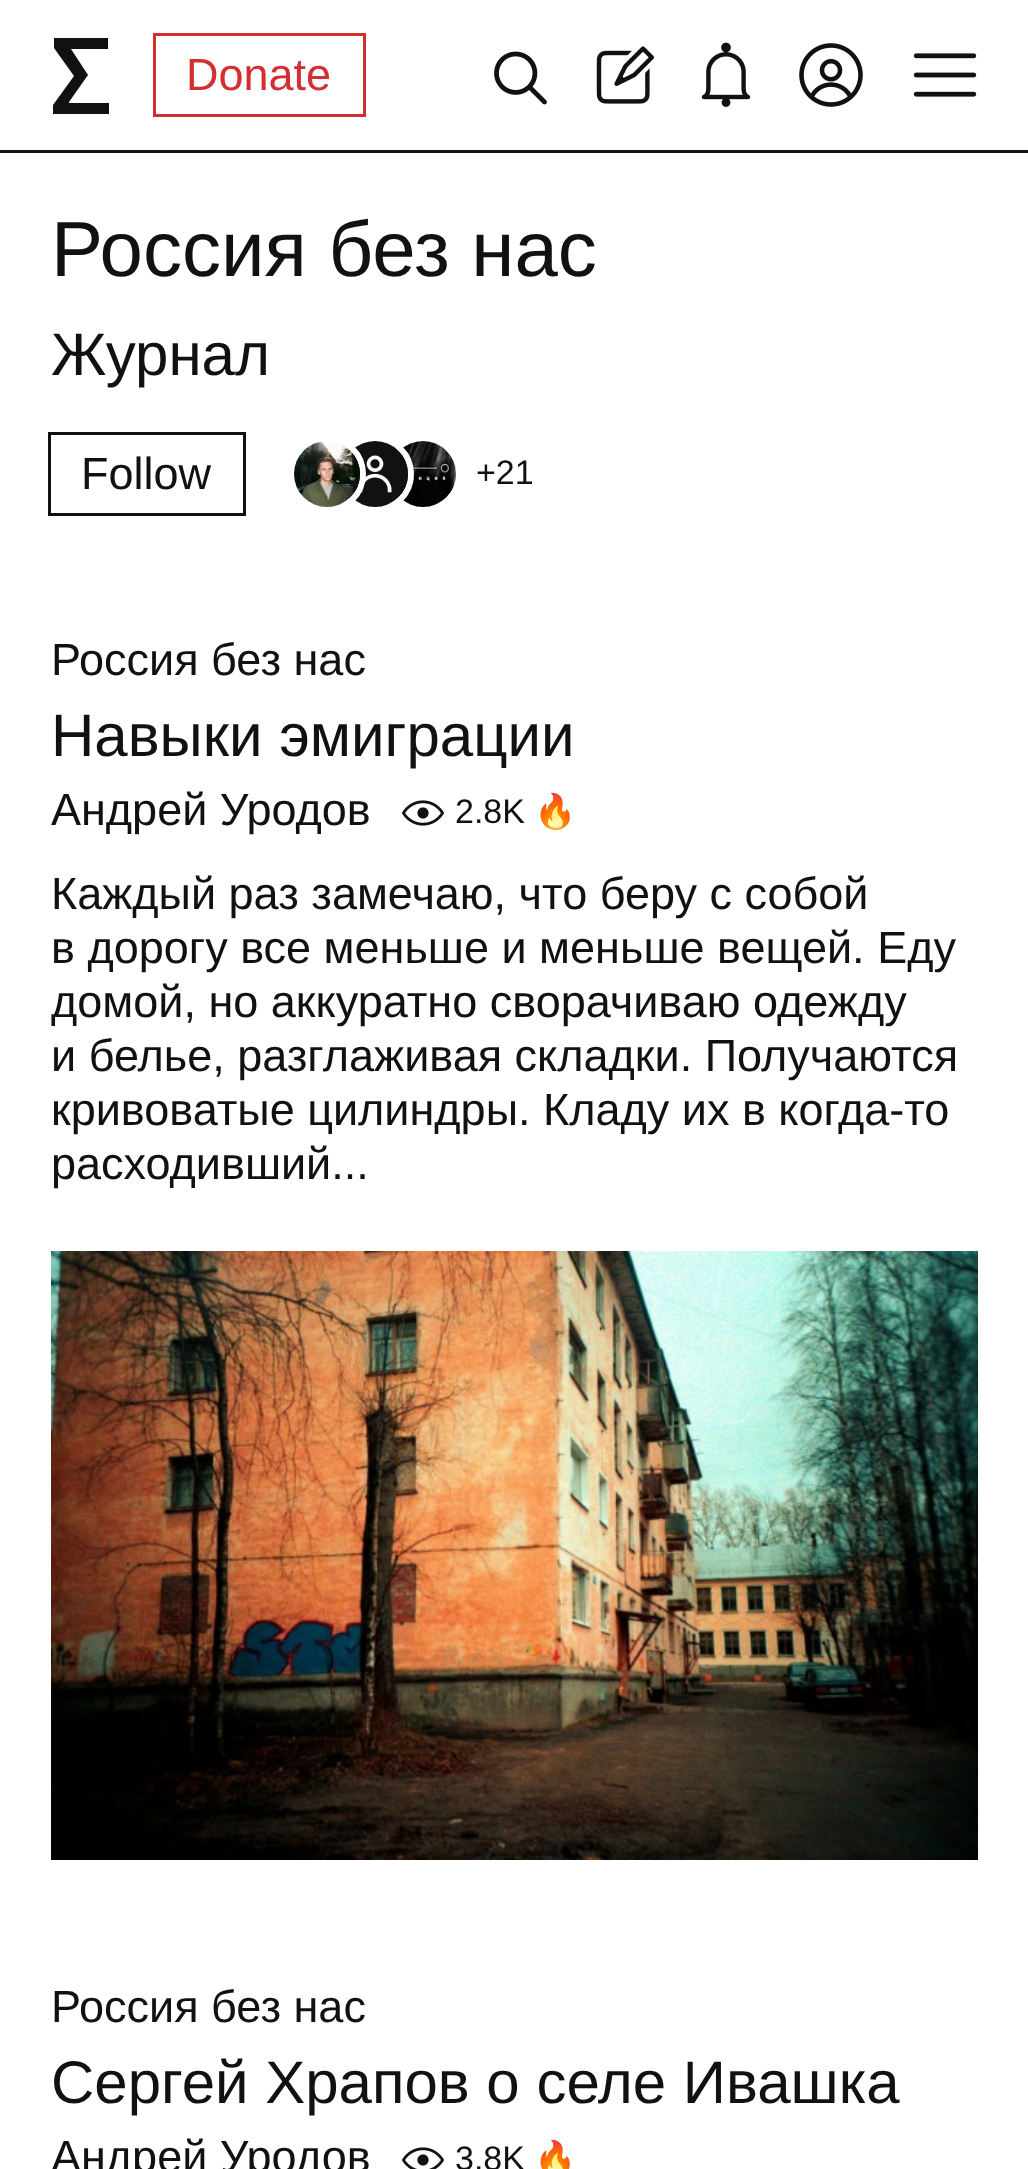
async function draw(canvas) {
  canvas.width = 1028
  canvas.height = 2169
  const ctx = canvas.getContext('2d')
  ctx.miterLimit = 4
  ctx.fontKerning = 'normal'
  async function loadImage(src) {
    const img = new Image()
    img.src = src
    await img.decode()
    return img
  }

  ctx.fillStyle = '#fff'
  ctx.fillRect(0, 0, 1028, 2169)
  ctx.fillStyle = '#111'
  ctx.fillRect(0, 150, 1028, 3)
  ctx.beginPath()
  ctx.moveTo(69, 102)
  ctx.lineTo(69, 103)
  ctx.lineTo(109, 103)
  ctx.lineTo(109, 114)
  ctx.lineTo(53, 114)
  ctx.lineTo(53, 105)
  ctx.lineTo(74, 76)
  ctx.lineTo(54, 48)
  ctx.lineTo(54, 38)
  ctx.lineTo(108, 38)
  ctx.lineTo(108, 49)
  ctx.lineTo(71, 49)
  ctx.lineTo(88, 75)
  ctx.closePath()
  ctx.fill('evenodd')
  ctx.strokeStyle = '#d23030'
  ctx.lineWidth = 3
  ctx.strokeRect(154.5, 34.5, 210, 81)
  ctx.font = '45px Liberation Sans'
  ctx.fillStyle = '#d23030'
  ctx.fillText('Donate', 186, 90)
  ctx.drawImage(await loadImage('image0.png'), 494, 51, 53, 54)
  ctx.drawImage(await loadImage('image1.png'), 596, 46, 58, 58)
  ctx.drawImage(await loadImage('image2.png'), 701, 42, 50, 65)
  ctx.drawImage(await loadImage('image3.png'), 799, 43, 64, 64)
  ctx.drawImage(await loadImage('image4.png'), 913, 53, 64, 44)
  ctx.font = '78px Liberation Sans'
  ctx.fillStyle = '#111'
  ctx.fillText('Россия без нас', 51, 276)
  ctx.font = '60px Liberation Sans'
  ctx.fillText('Журнал', 51, 375)
  ctx.strokeStyle = '#111'
  ctx.strokeRect(49.5, 433.5, 195, 81)
  ctx.font = '45px Liberation Sans'
  ctx.fillText('Follow', 81, 489)
  ctx.drawImage(await loadImage('image7.png'), 398, 441, 58, 66)
  ctx.beginPath()
  ctx.arc(375, 474, 36, 0, 2 * Math.PI)
  ctx.strokeStyle = '#fff'
  ctx.lineWidth = 6
  ctx.stroke()
  ctx.drawImage(await loadImage('image6.png'), 350, 441, 58, 66)
  ctx.beginPath()
  ctx.arc(327, 474, 36, 0, 2 * Math.PI)
  ctx.stroke()
  ctx.drawImage(await loadImage('image5.png'), 294, 441, 66, 66)
  ctx.font = '34px Liberation Sans'
  ctx.fillText('+21', 476, 484)
  ctx.font = '45px Liberation Sans'
  ctx.fillText('Россия без нас', 51, 675)
  ctx.font = '60px Liberation Sans'
  ctx.fillText('Навыки эмиграции', 51, 756)
  ctx.font = '45px Liberation Sans'
  ctx.fillText('Андрей Уродов', 51, 825)
  ctx.drawImage(await loadImage('image8.png'), 402, 800, 42, 26)
  ctx.font = '34px Liberation Sans'
  ctx.fillText('2.8K', 455, 823)
  ctx.font = '34px Noto Color Emoji'
  ctx.fillText('🔥', 534, 823)
  ctx.font = '45px Liberation Sans'
  ctx.fillText('Каждый раз замечаю, что беру с собой', 51, 909)
  ctx.fillText('в дорогу все меньше и меньше вещей. Еду', 51, 963)
  ctx.fillText('домой, но аккуратно сворачиваю одежду', 51, 1017)
  ctx.fillText('и белье, разглаживая складки. Получаются', 51, 1071)
  ctx.fillText('кривоватые цилиндры. Кладу их в когда-то', 51, 1125)
  ctx.fillText('расходивший...', 51, 1179)
  ctx.drawImage(await loadImage('image9.png'), 51, 1251, 927, 609)
  ctx.fillText('Россия без нас', 51, 2022)
  ctx.font = '60px Liberation Sans'
  ctx.fillText('Сергей Храпов о селе Ивашка', 51, 2103)
  ctx.font = '45px Liberation Sans'
  ctx.fillText('Андрей Уродов', 51, 2172)
  ctx.drawImage(await loadImage('image10.png'), 402, 2147, 42, 22)
  ctx.font = '34px Liberation Sans'
  ctx.fillText('3.8K', 455, 2170)
  ctx.font = '34px Noto Color Emoji'
  ctx.fillText('🔥', 534, 2170)
}

draw(document.querySelector('canvas'))
